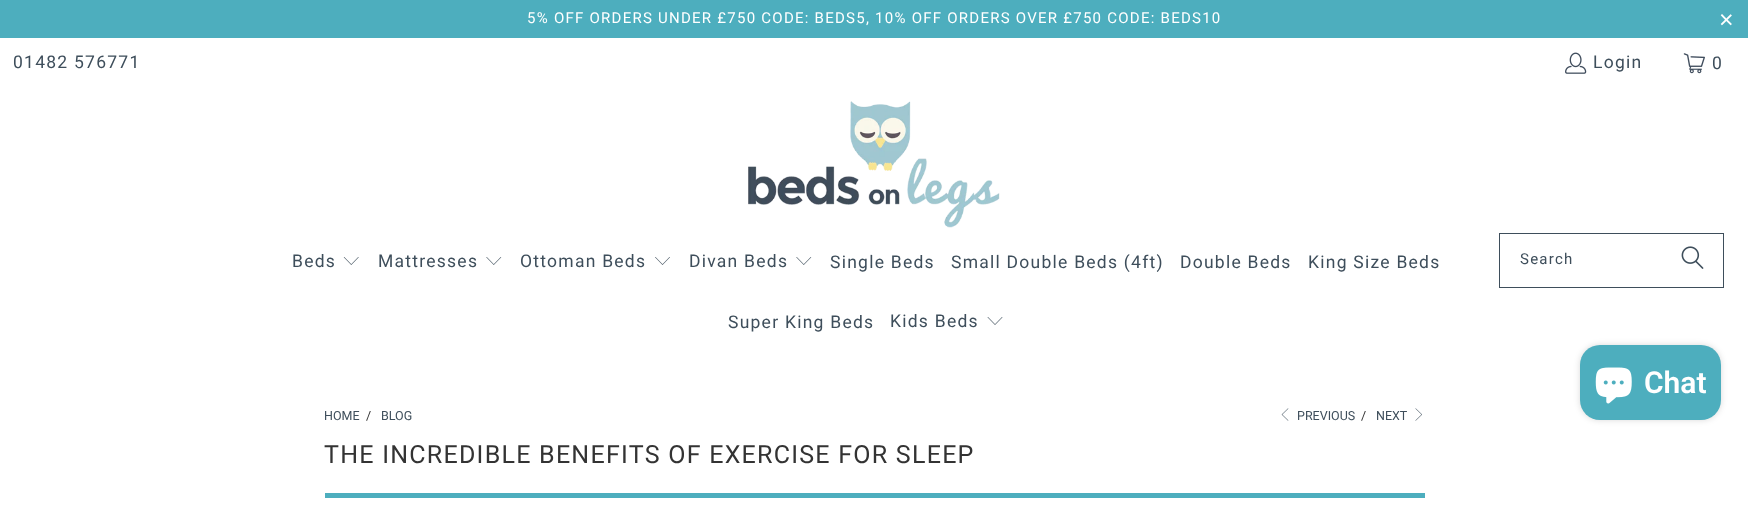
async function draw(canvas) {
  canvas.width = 1748
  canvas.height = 526
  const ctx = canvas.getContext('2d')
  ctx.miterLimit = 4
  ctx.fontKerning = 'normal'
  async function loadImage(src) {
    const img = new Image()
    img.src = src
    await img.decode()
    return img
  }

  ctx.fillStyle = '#fff'
  ctx.fillRect(0, 0, 1748, 526)
  ctx.fillStyle = '#4daebe'
  ctx.fillRect(0, 0, 1748, 38)
  ctx.letterSpacing = '1.25px'
  ctx.font = '15px Roboto'
  ctx.fillStyle = '#fff'
  ctx.fillText('5% OFF ORDERS UNDER £750 CODE: BEDS5, 10% OFF ORDERS OVER £750 CODE: BEDS10', 527, 23)
  ctx.font = '25px Liberation Sans'
  ctx.fillText('×', 1719, 28)
  ctx.font = '17.5px Roboto'
  ctx.fillStyle = '#3e4e5b'
  ctx.fillText('01482 576771', 13, 68)
  ctx.drawImage(await loadImage('image0.png'), 1565, 52, 22, 22)
  ctx.fillText('Login', 1593, 68)
  ctx.drawImage(await loadImage('image1.png'), 1683, 53, 22, 21)
  ctx.fillText('0', 1712, 69)
  ctx.drawImage(await loadImage('image2.png'), 748, 101, 252, 127)
  ctx.fillText('Beds', 292, 267)
  ctx.drawImage(await loadImage('image3.png'), 343, 257, 16, 8)
  ctx.fillText('Mattresses', 378, 267)
  ctx.drawImage(await loadImage('image4.png'), 486, 257, 16, 8)
  ctx.fillText('Ottoman Beds', 520, 267)
  ctx.drawImage(await loadImage('image5.png'), 655, 257, 15, 8)
  ctx.fillText('Divan Beds', 689, 267)
  ctx.drawImage(await loadImage('image4.png'), 796, 257, 16, 8)
  ctx.fillText('Single Beds', 830, 268)
  ctx.fillText('Small Double Beds (4ft)', 951, 268)
  ctx.fillText('Double Beds', 1180, 268)
  ctx.fillText('King Size Beds', 1308, 268)
  ctx.fillText('Super King Beds', 728, 328)
  ctx.fillText('Kids Beds', 890, 327)
  ctx.drawImage(await loadImage('image6.png'), 987, 317, 16, 8)
  ctx.strokeStyle = '#3e4e5b'
  ctx.strokeRect(1499.5, 233.5, 224, 54)
  ctx.font = '15px Roboto'
  ctx.fillText('Search', 1520, 264)
  ctx.drawImage(await loadImage('image7.png'), 1681, 246, 23, 23)
  ctx.fillStyle = '#00000026'
  ctx.filter = 'blur(3px)'
  ctx.beginPath()
  ctx.roundRect(1580, 345, 141, 75, 20)
  ctx.fill()
  ctx.filter = 'none'
  ctx.fillStyle = '#4daebe'
  ctx.beginPath()
  ctx.roundRect(1580, 345, 141, 75, 20)
  ctx.fill()
  ctx.drawImage(await loadImage('image8.png'), 1595, 367, 37, 37)
  ctx.letterSpacing = '0px'
  ctx.font = '600 30px Roboto'
  ctx.fillStyle = '#fff'
  ctx.fillText('Chat', 1644, 393)
  ctx.font = '12.5px Roboto'
  ctx.fillStyle = '#3e4e5b'
  ctx.fillText('HOME', 324, 420)
  ctx.fillStyle = '#333'
  ctx.fillText('/', 366, 420)
  ctx.fillStyle = '#3e4e5b'
  ctx.fillText('BLOG', 381, 420)
  ctx.drawImage(await loadImage('image9.png'), 1281, 408, 8, 13)
  ctx.fillText('PREVIOUS', 1297, 420)
  ctx.fillStyle = '#333'
  ctx.fillText('/', 1361, 420)
  ctx.fillStyle = '#3e4e5b'
  ctx.fillText('NEXT', 1376, 420)
  ctx.drawImage(await loadImage('image10.png'), 1415, 408, 7, 13)
  ctx.letterSpacing = '1.25px'
  ctx.font = '25px Roboto'
  ctx.fillStyle = '#333'
  ctx.fillText('THE INCREDIBLE BENEFITS OF EXERCISE FOR SLEEP', 324, 463)
  ctx.fillStyle = '#4daebe'
  ctx.fillRect(325, 493, 1100, 5)
}

draw(document.querySelector('canvas'))
